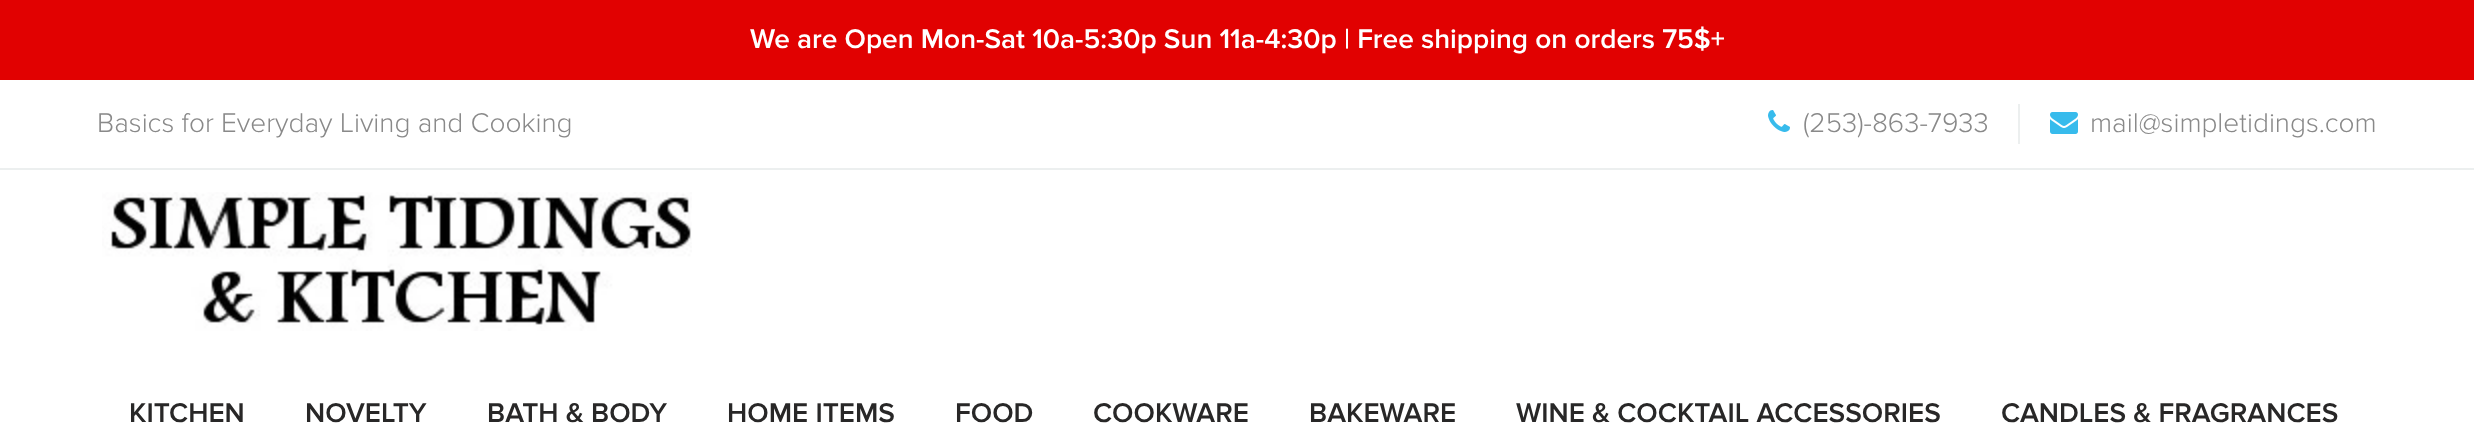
async function draw(canvas) {
  canvas.width = 2474
  canvas.height = 442
  const ctx = canvas.getContext('2d')
  ctx.miterLimit = 4
  ctx.fontKerning = 'normal'
  async function loadImage(src) {
    const img = new Image()
    img.src = src
    await img.decode()
    return img
  }

  ctx.fillStyle = '#fff'
  ctx.fillRect(0, 0, 2474, 442)
  ctx.fillStyle = '#e10101'
  ctx.fillRect(0, 0, 2474, 80)
  ctx.font = '600 28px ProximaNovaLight'
  ctx.fillStyle = '#fff'
  ctx.fillText('We are Open Mon-Sat 10a-5:30p Sun 11a-4:30p | Free shipping on orders 75$+', 750, 48)
  ctx.font = '300 28px ProximaNovaLight'
  ctx.fillStyle = '#898989'
  ctx.fillText('Basics for Everyday Living and Cooking', 97, 132)
  ctx.drawImage(await loadImage('image0.png'), 1768, 110, 22, 22)
  ctx.fillText('(253)-863-7933', 1803, 132)
  ctx.fillStyle = '#ecefef'
  ctx.fillRect(2018, 104, 2, 40)
  ctx.drawImage(await loadImage('image1.png'), 2050, 112, 28, 22)
  ctx.fillStyle = '#898989'
  ctx.fillText('mail@simpletidings.com', 2090, 132)
  ctx.fillStyle = '#ecefef'
  ctx.fillRect(0, 168, 2474, 2)
  ctx.drawImage(await loadImage('image2.png'), 102, 192, 590, 139)
  ctx.font = '600 28px ProximaNovaLight'
  ctx.fillStyle = '#282727'
  ctx.fillText('KITCHEN', 129, 422)
  ctx.fillText('NOVELTY', 305, 422)
  ctx.fillText('BATH & BODY', 487, 422)
  ctx.fillText('HOME ITEMS', 727, 422)
  ctx.fillText('FOOD', 955, 422)
  ctx.fillText('COOKWARE', 1093, 422)
  ctx.fillText('BAKEWARE', 1309, 422)
  ctx.fillText('WINE & COCKTAIL ACCESSORIES', 1516, 422)
  ctx.fillText('CANDLES & FRAGRANCES', 2001, 422)
}

draw(document.querySelector('canvas'))
